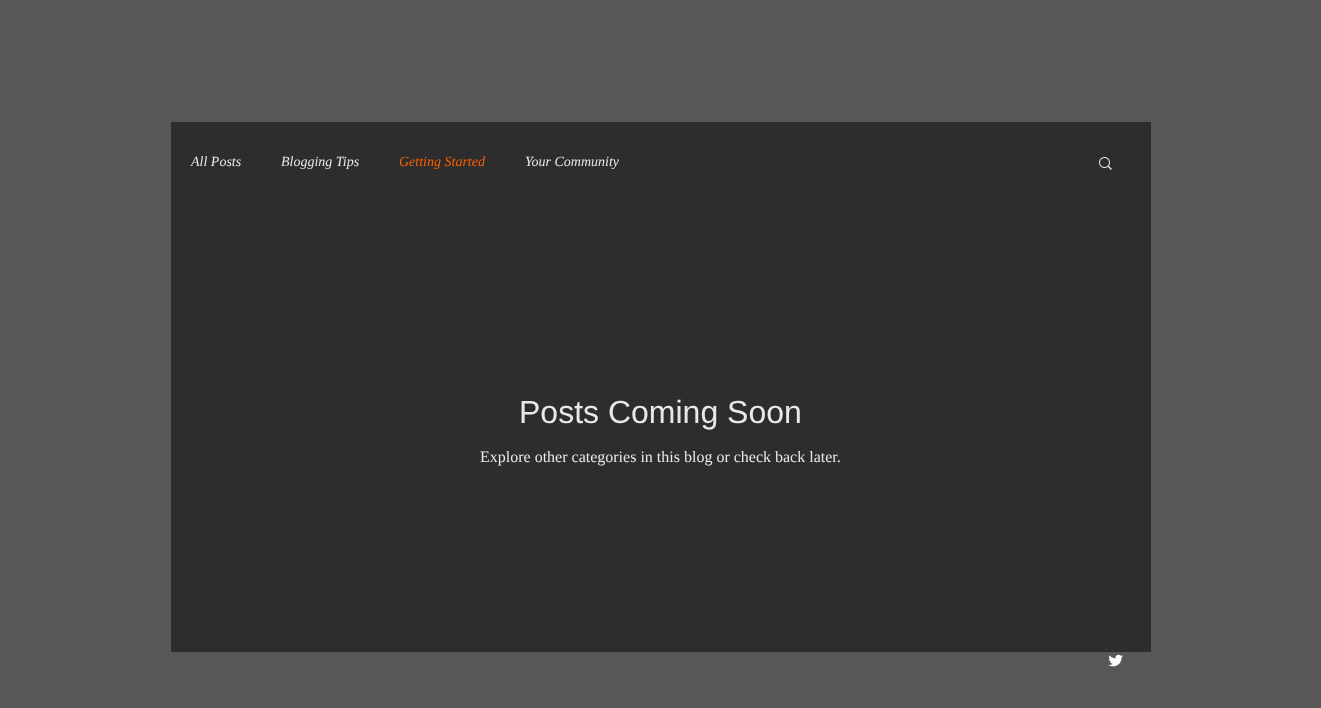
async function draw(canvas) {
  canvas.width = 1321
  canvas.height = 708
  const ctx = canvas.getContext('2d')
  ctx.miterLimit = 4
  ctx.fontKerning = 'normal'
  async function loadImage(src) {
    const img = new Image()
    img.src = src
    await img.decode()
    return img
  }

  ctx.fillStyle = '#575757'
  ctx.fillRect(0, 0, 1321, 708)
  ctx.fillStyle = '#2d2d2d'
  ctx.fillRect(171, 122, 980, 530)
  ctx.font = 'italic 14px Liberation Serif'
  ctx.fillStyle = '#e8e8e8'
  ctx.fillText('All Posts', 191, 166)
  ctx.fillText('Blogging Tips', 281, 166)
  ctx.fillStyle = '#fc6000'
  ctx.fillText('Getting Started', 399, 166)
  ctx.fillStyle = '#e8e8e8'
  ctx.fillText('Your Community', 525, 166)
  ctx.drawImage(await loadImage('image0.png'), 1099, 157, 13, 13)
  ctx.font = '32px Liberation Sans'
  ctx.fillText('Posts Coming Soon', 519, 423)
  ctx.font = '16px Liberation Serif'
  ctx.fillText('Explore other categories in this blog or check back later.', 480, 462)
  ctx.drawImage(await loadImage('image1.png'), 1108, 654, 15, 13)
}

draw(document.querySelector('canvas'))
